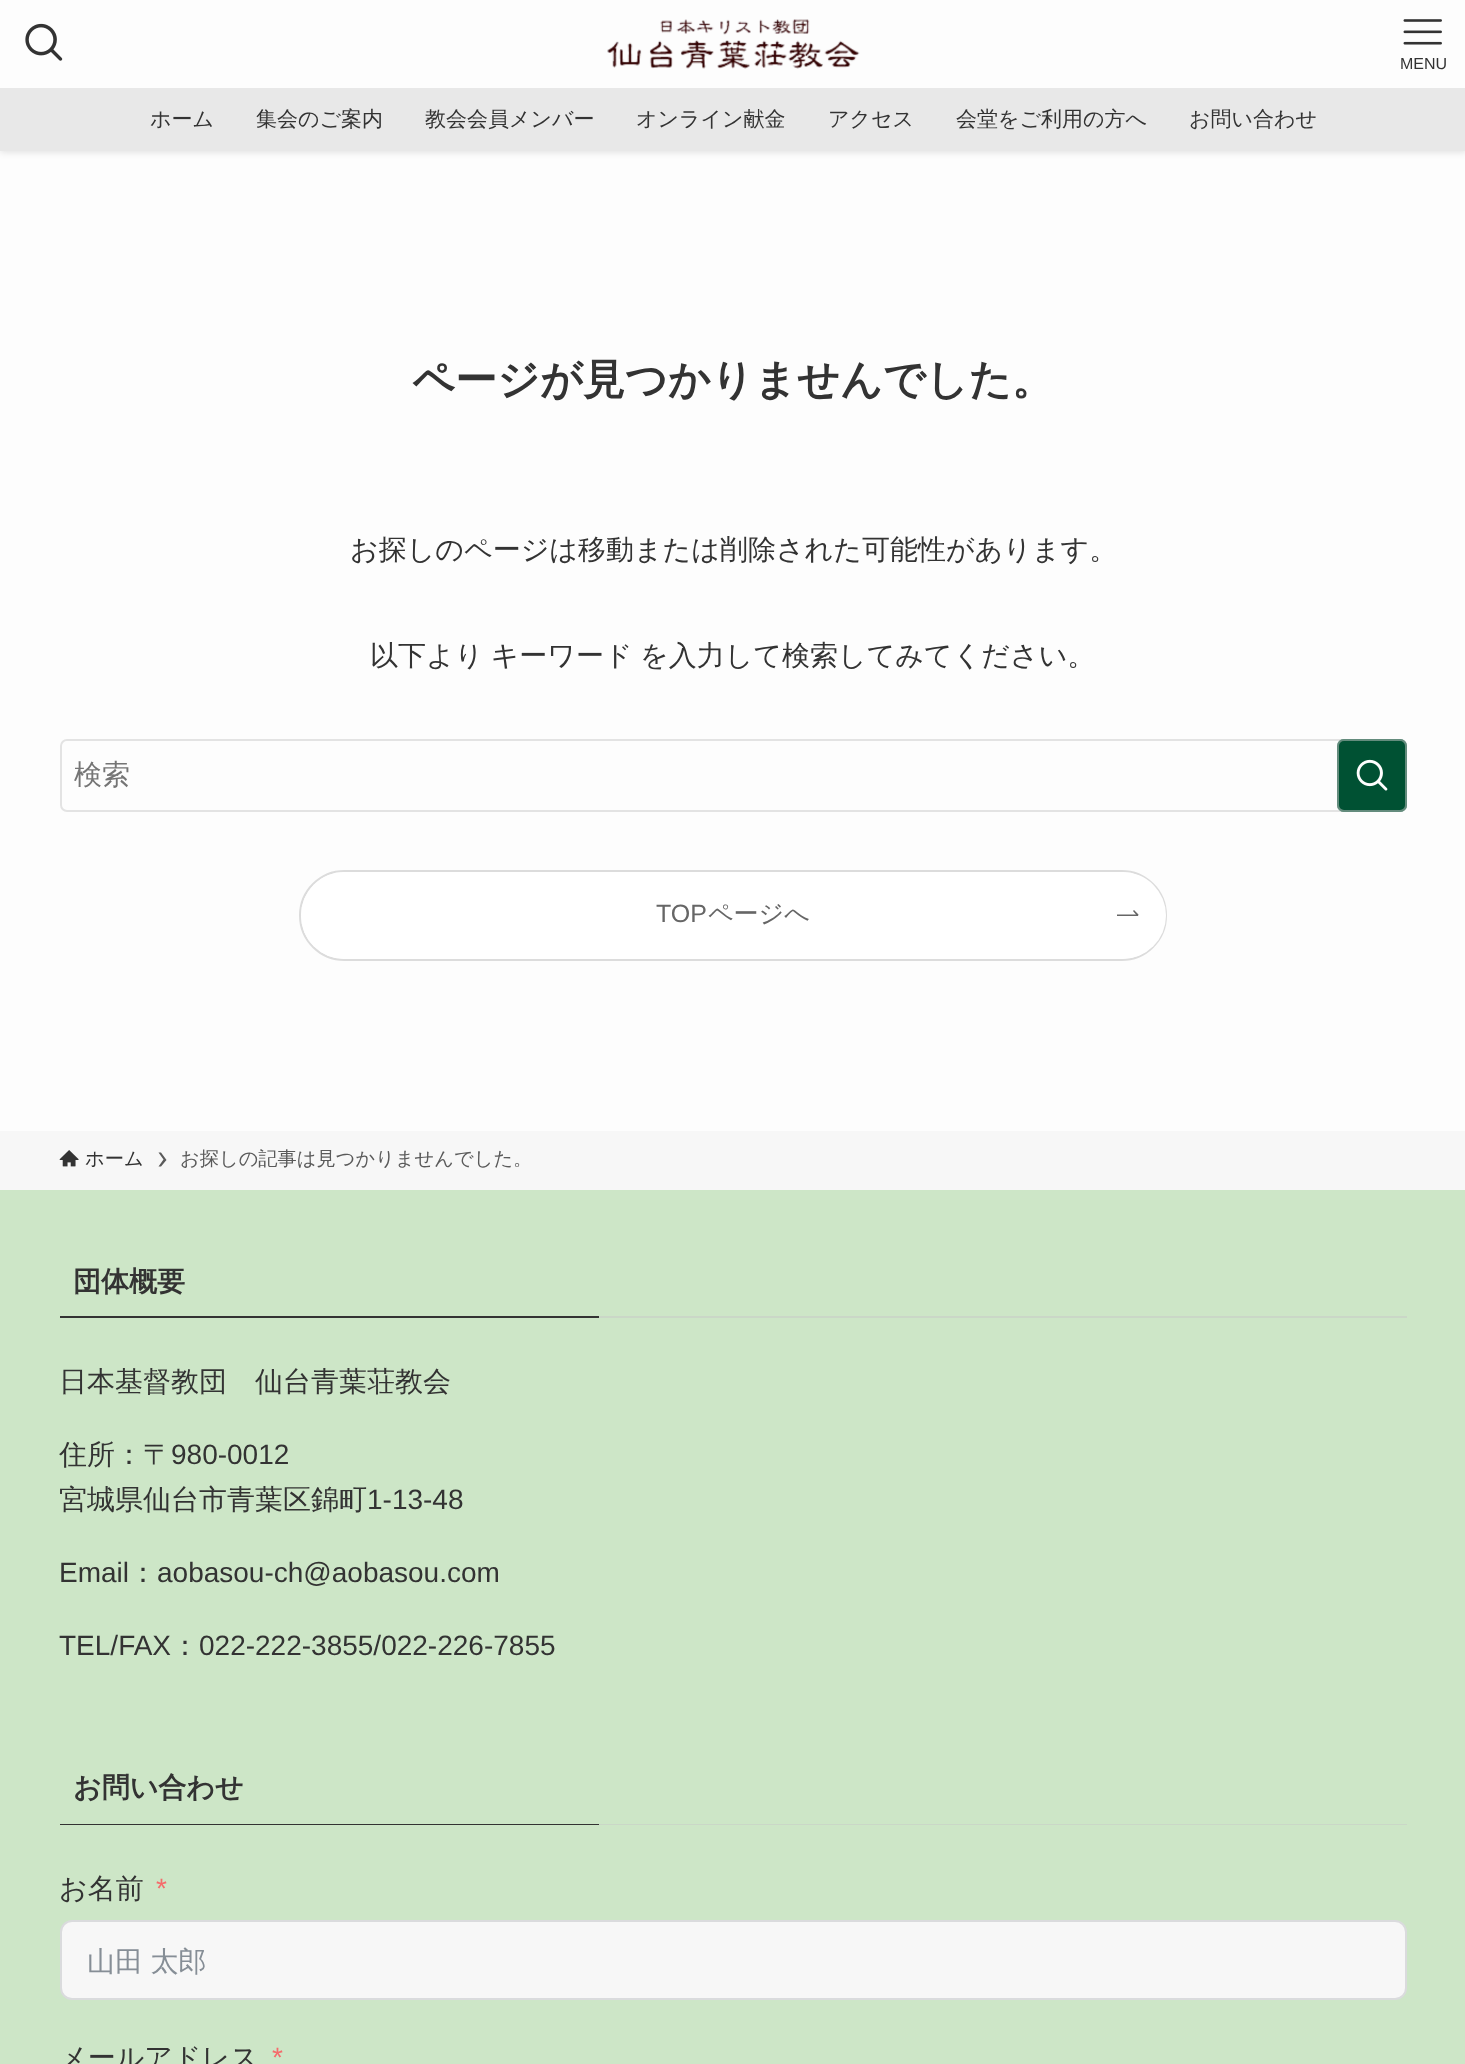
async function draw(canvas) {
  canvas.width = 1465
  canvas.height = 2064
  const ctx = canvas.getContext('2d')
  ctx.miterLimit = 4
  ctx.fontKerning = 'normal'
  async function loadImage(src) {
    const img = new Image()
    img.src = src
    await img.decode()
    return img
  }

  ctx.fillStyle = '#fdfdfd'
  ctx.fillRect(0, 0, 1465, 2064)
  ctx.fillStyle = '#0000001f'
  ctx.filter = 'blur(3.5px)'
  ctx.beginPath()
  ctx.rect(0, 2, 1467, 150)
  ctx.fill()
  ctx.filter = 'none'
  ctx.fillStyle = '#fdfdfd'
  ctx.fillRect(0, 0, 1465, 88)
  ctx.drawImage(await loadImage('image0.png'), 25, 23, 38, 38)
  ctx.drawImage(await loadImage('image1.png'), 607, 19, 253, 50)
  ctx.drawImage(await loadImage('image2.png'), 1403, 19, 39, 26)
  ctx.font = '16px Liberation Sans'
  ctx.fillStyle = '#333'
  ctx.fillText('MENU', 1400, 69)
  ctx.fillStyle = '#e8e8e8'
  ctx.fillRect(0, 88, 1465, 63)
  ctx.font = '500 21px WenQuanYi Zen Hei'
  ctx.fillStyle = '#333'
  ctx.fillText('ホーム', 150, 126)
  ctx.fillText('集会のご案内', 256, 126)
  ctx.fillText('教会会員メンバー', 425, 126)
  ctx.fillText('オンライン献金', 636, 126)
  ctx.fillText('アクセス', 828, 126)
  ctx.fillText('会堂をご利用の方へ', 956, 126)
  ctx.fillText('お問い合わせ', 1189, 126)
  ctx.font = 'bold 42px WenQuanYi Zen Hei'
  ctx.fillText('ページが見つかりませんでした。', 412, 394)
  ctx.font = '500 28px WenQuanYi Zen Hei'
  ctx.fillText('お探しのページは移動または削除された可能性があります。', 350, 559)
  ctx.wordSpacing = '-1px'
  ctx.fillText('以下より キーワード を入力して検索してみてください。', 370, 665)
  ctx.beginPath()
  ctx.roundRect(61, 740, 1345, 71, 6)
  ctx.strokeStyle = '#e3e3e3'
  ctx.lineWidth = 2
  ctx.stroke()
  ctx.wordSpacing = '0px'
  ctx.fillStyle = '#757575'
  ctx.fillText('検索', 74, 784)
  ctx.fillStyle = '#005133'
  ctx.beginPath()
  ctx.roundRect(1337, 739, 70, 73, 7)
  ctx.fill()
  ctx.beginPath()
  ctx.roundRect(1338, 740, 68, 71, 6)
  ctx.strokeStyle = '#c7c7c780'
  ctx.stroke()
  ctx.drawImage(await loadImage('image3.png'), 1356, 759, 32, 32)
  ctx.beginPath()
  ctx.roundRect(300, 871, 866, 89, 44.5)
  ctx.strokeStyle = '#dcdcdc'
  ctx.stroke()
  ctx.fillStyle = '#fff'
  ctx.beginPath()
  ctx.roundRect(301, 872, 865, 87, 43.5)
  ctx.fill()
  ctx.font = '25px Liberation Sans'
  ctx.fillStyle = '#666'
  ctx.fillText('TOP', 656, 922)
  ctx.font = '500 25px WenQuanYi Zen Hei'
  ctx.fillText('ページへ', 708, 922)
  ctx.beginPath()
  ctx.moveTo(1138, 916)
  ctx.lineTo(1117, 916)
  ctx.lineTo(1117, 914.5)
  ctx.lineTo(1136, 914.5)
  ctx.lineTo(1133, 911)
  ctx.lineTo(1134, 910)
  ctx.lineTo(1138.5, 914.5)
  ctx.closePath()
  ctx.fill()
  ctx.fillStyle = '#f7f7f7'
  ctx.fillRect(0, 1131, 1465, 59)
  ctx.drawImage(await loadImage('image4.png'), 59, 1150, 20, 17)
  ctx.font = '500 19.25px WenQuanYi Zen Hei'
  ctx.fillStyle = '#333'
  ctx.fillText('ホーム', 85, 1165)
  ctx.fillStyle = '#5a5a5a'
  ctx.beginPath()
  ctx.moveTo(161, 1152.5)
  ctx.lineTo(158.5, 1152.5)
  ctx.lineTo(163.5, 1159.5)
  ctx.lineTo(158.5, 1166.5)
  ctx.lineTo(161, 1166.5)
  ctx.lineTo(166.5, 1160)
  ctx.closePath()
  ctx.fill()
  ctx.fillText('お探しの記事は見つかりませんでした。', 180, 1165)
  ctx.fillStyle = '#cde6c7'
  ctx.fillRect(0, 1190, 1465, 874)
  ctx.font = 'bold 28px WenQuanYi Zen Hei'
  ctx.fillStyle = '#333'
  ctx.fillText('団体概要', 73, 1291)
  ctx.fillRect(60, 1316, 539, 2)
  ctx.fillStyle = '#cad7c7'
  ctx.fillRect(599, 1316, 808, 2)
  ctx.font = '500 28px WenQuanYi Zen Hei'
  ctx.fillStyle = '#333'
  ctx.fillText('日本基督教団　仙台青葉荘教会', 59, 1391)
  ctx.fillText('住所：〒', 59, 1464)
  ctx.font = '28px Liberation Sans'
  ctx.fillText('980-0012', 171, 1464)
  ctx.font = '500 28px WenQuanYi Zen Hei'
  ctx.fillText('宮城県仙台市青葉区錦町', 59, 1509)
  ctx.font = '28px Liberation Sans'
  ctx.fillText('1-13-48', 367, 1509)
  ctx.fillText('Email', 59, 1582)
  ctx.font = '500 28px WenQuanYi Zen Hei'
  ctx.fillText('：', 129, 1582)
  ctx.font = '28px Liberation Sans'
  ctx.fillText('aobasou-ch@aobasou.com', 157, 1582)
  ctx.fillText('TEL/FAX', 59, 1655)
  ctx.font = '500 28px WenQuanYi Zen Hei'
  ctx.fillText('：', 171, 1655)
  ctx.font = '28px Liberation Sans'
  ctx.fillText('022-222-3855/022-226-7855', 199, 1655)
  ctx.font = 'bold 28px WenQuanYi Zen Hei'
  ctx.fillText('お問い合わせ', 73, 1797)
  ctx.fillRect(60, 1824, 539, 1)
  ctx.fillStyle = '#cad7c7'
  ctx.fillRect(599, 1824, 808, 1)
  ctx.font = '500 28px WenQuanYi Zen Hei'
  ctx.fillStyle = '#333'
  ctx.fillText('お名前', 59, 1898)
  ctx.font = '28px Liberation Sans'
  ctx.fillStyle = '#f56c6c'
  ctx.fillText('*', 156, 1898)
  ctx.fillStyle = '#f7f7f7'
  ctx.beginPath()
  ctx.roundRect(61, 1921, 1345, 78, 11)
  ctx.fill()
  ctx.strokeStyle = '#dadbdd'
  ctx.stroke()
  ctx.wordSpacing = '-1px'
  ctx.font = '500 28px WenQuanYi Zen Hei'
  ctx.fillStyle = '#868e96'
  ctx.fillText('山田 太郎', 87, 1971)
  ctx.wordSpacing = '0px'
  ctx.fillStyle = '#333'
  ctx.fillText('メールアドレス', 59, 2067)
  ctx.font = '28px Liberation Sans'
  ctx.fillStyle = '#f56c6c'
  ctx.fillText('*', 272, 2067)
}

draw(document.querySelector('canvas'))
